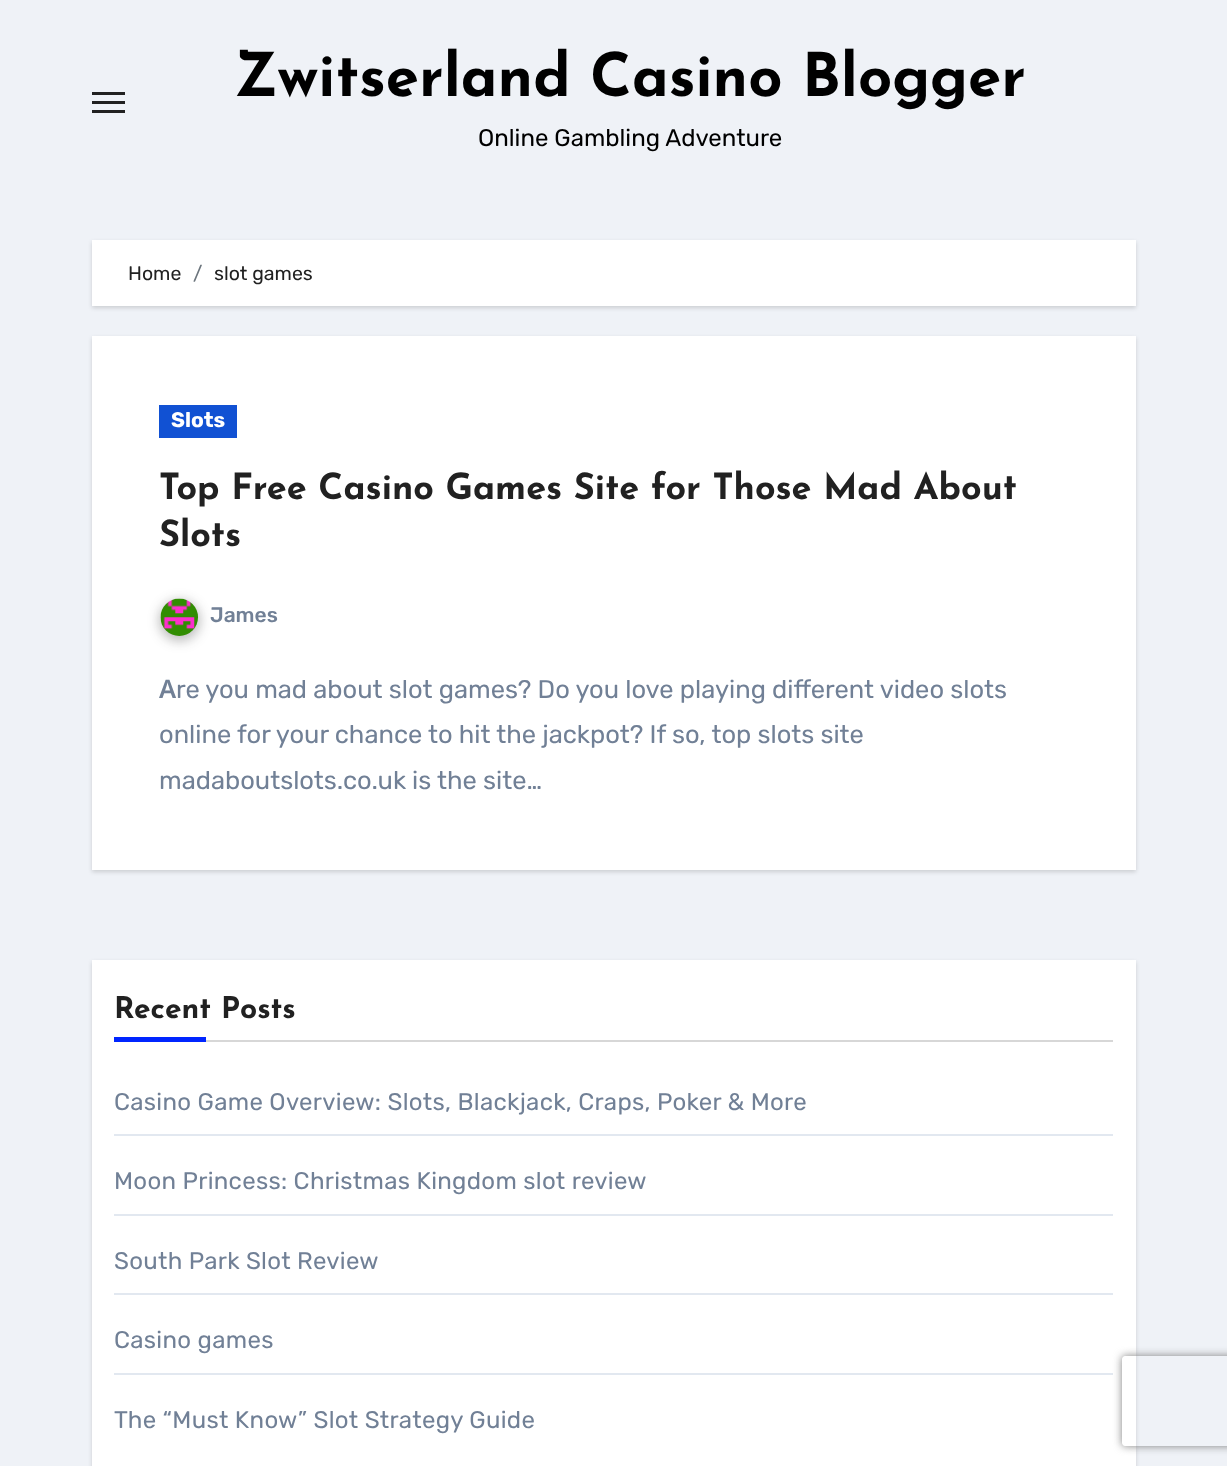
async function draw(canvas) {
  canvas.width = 1227
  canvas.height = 1466
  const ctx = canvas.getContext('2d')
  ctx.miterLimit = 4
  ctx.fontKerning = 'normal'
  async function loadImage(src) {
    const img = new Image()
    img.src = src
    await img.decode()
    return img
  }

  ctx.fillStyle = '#eff2f7'
  ctx.fillRect(0, 0, 1227, 1466)
  ctx.fillStyle = '#212121'
  ctx.fillRect(92, 92, 33, 3)
  ctx.fillRect(92, 101, 33, 3)
  ctx.fillRect(92, 110, 33, 3)
  ctx.font = 'bold 60px Josefin Sans'
  ctx.fillStyle = '#000'
  ctx.fillText('Zwitserland Casino Blogger', 234, 96)
  ctx.font = '300 24px Rubik'
  ctx.fillText('Online Gambling Adventure', 478, 146)
  ctx.fillStyle = '#00000026'
  ctx.filter = 'blur(2px)'
  ctx.beginPath()
  ctx.rect(92, 242, 1044, 66)
  ctx.fill()
  ctx.filter = 'none'
  ctx.fillStyle = '#fff'
  ctx.fillRect(92, 240, 1044, 66)
  ctx.font = '300 19.5px Rubik'
  ctx.fillStyle = '#212121'
  ctx.fillText('Home', 128, 280)
  ctx.fillStyle = '#6c757d'
  ctx.fillText('/', 193, 280)
  ctx.fillStyle = '#212121'
  ctx.fillText('slot games', 214, 280)
  ctx.fillStyle = '#00000026'
  ctx.filter = 'blur(2px)'
  ctx.beginPath()
  ctx.rect(92, 338, 1044, 534)
  ctx.fill()
  ctx.filter = 'none'
  ctx.fillStyle = '#fff'
  ctx.fillRect(92, 336, 1044, 534)
  ctx.fillStyle = '#1151d3'
  ctx.fillRect(159, 405, 78, 33)
  ctx.font = 'bold 21px Rubik'
  ctx.fillStyle = '#fff'
  ctx.fillText('Slots', 171, 427)
  ctx.font = 'bold 36px Josefin Sans'
  ctx.fillStyle = '#212121'
  ctx.fillText('Top Free Casino Games Site for Those Mad About', 159, 499)
  ctx.fillText('Slots', 159, 546)
  ctx.fillStyle = '#2121214d'
  ctx.filter = 'blur(6px)'
  ctx.beginPath()
  ctx.roundRect(159, 600, 41, 41, 20.5)
  ctx.fill()
  ctx.filter = 'none'
  ctx.drawImage(await loadImage('image0.png'), 160, 598, 38, 38)
  ctx.font = '500 21px Rubik'
  ctx.fillStyle = '#718096'
  ctx.fillText('James', 210, 622)
  ctx.font = '600 25.5px Noto Sans'
  ctx.fillText('A', 159, 698)
  ctx.font = '300 25.5px Rubik'
  ctx.fillText('re you mad about slot games? Do you love playing different video slots', 176, 698)
  ctx.fillText('online for your chance to hit the jackpot? If so, top slots site', 159, 743)
  ctx.fillText('madaboutslots.co.uk is the site…', 159, 789)
  ctx.fillStyle = '#00000026'
  ctx.filter = 'blur(2px)'
  ctx.beginPath()
  ctx.rect(92, 962, 1044, 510)
  ctx.fill()
  ctx.filter = 'none'
  ctx.fillStyle = '#fff'
  ctx.fillRect(92, 960, 1044, 506)
  ctx.fillStyle = '#d7d7d7'
  ctx.fillRect(206, 1040, 907, 2)
  ctx.font = 'bold 30px Josefin Sans'
  ctx.fillStyle = '#212121'
  ctx.fillText('Recent Posts', 114, 1018)
  ctx.fillStyle = '#0025ff'
  ctx.fillRect(114, 1037, 92, 5)
  ctx.fillStyle = '#e2e8f0'
  ctx.fillRect(114, 1134, 999, 2)
  ctx.letterSpacing = '0.3px'
  ctx.font = '300 24px Rubik'
  ctx.fillStyle = '#718096'
  ctx.fillText('Casino Game Overview: Slots, Blackjack, Craps, Poker & More', 114, 1110)
  ctx.fillStyle = '#e2e8f0'
  ctx.fillRect(114, 1214, 999, 2)
  ctx.fillStyle = '#718096'
  ctx.fillText('Moon Princess: Christmas Kingdom slot review', 114, 1189)
  ctx.fillStyle = '#e2e8f0'
  ctx.fillRect(114, 1293, 999, 2)
  ctx.fillStyle = '#718096'
  ctx.fillText('South Park Slot Review', 114, 1269)
  ctx.fillStyle = '#e2e8f0'
  ctx.fillRect(114, 1373, 999, 2)
  ctx.fillStyle = '#718096'
  ctx.fillText('Casino games', 114, 1348)
  ctx.fillText('The “Must Know” Slot Strategy Guide', 114, 1428)
  ctx.save()
  ctx.beginPath()
  ctx.moveTo(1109, 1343)
  ctx.lineTo(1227, 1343)
  ctx.lineTo(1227, 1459)
  ctx.lineTo(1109, 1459)
  ctx.closePath()
  ctx.moveTo(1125, 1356)
  ctx.lineTo(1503, 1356)
  ctx.bezierCurveTo(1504.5, 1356, 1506, 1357.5, 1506, 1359)
  ctx.lineTo(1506, 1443)
  ctx.bezierCurveTo(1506, 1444.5, 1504.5, 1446, 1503, 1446)
  ctx.lineTo(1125, 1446)
  ctx.bezierCurveTo(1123.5, 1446, 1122, 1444.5, 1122, 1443)
  ctx.lineTo(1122, 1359)
  ctx.bezierCurveTo(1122, 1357.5, 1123.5, 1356, 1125, 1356)
  ctx.closePath()
  ctx.clip('evenodd')
  ctx.fillStyle = '#808080'
  ctx.filter = 'blur(4px)'
  ctx.beginPath()
  ctx.roundRect(1122, 1356, 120, 90, 3)
  ctx.fill()
  ctx.filter = 'none'
  ctx.restore()
}

draw(document.querySelector('canvas'))
